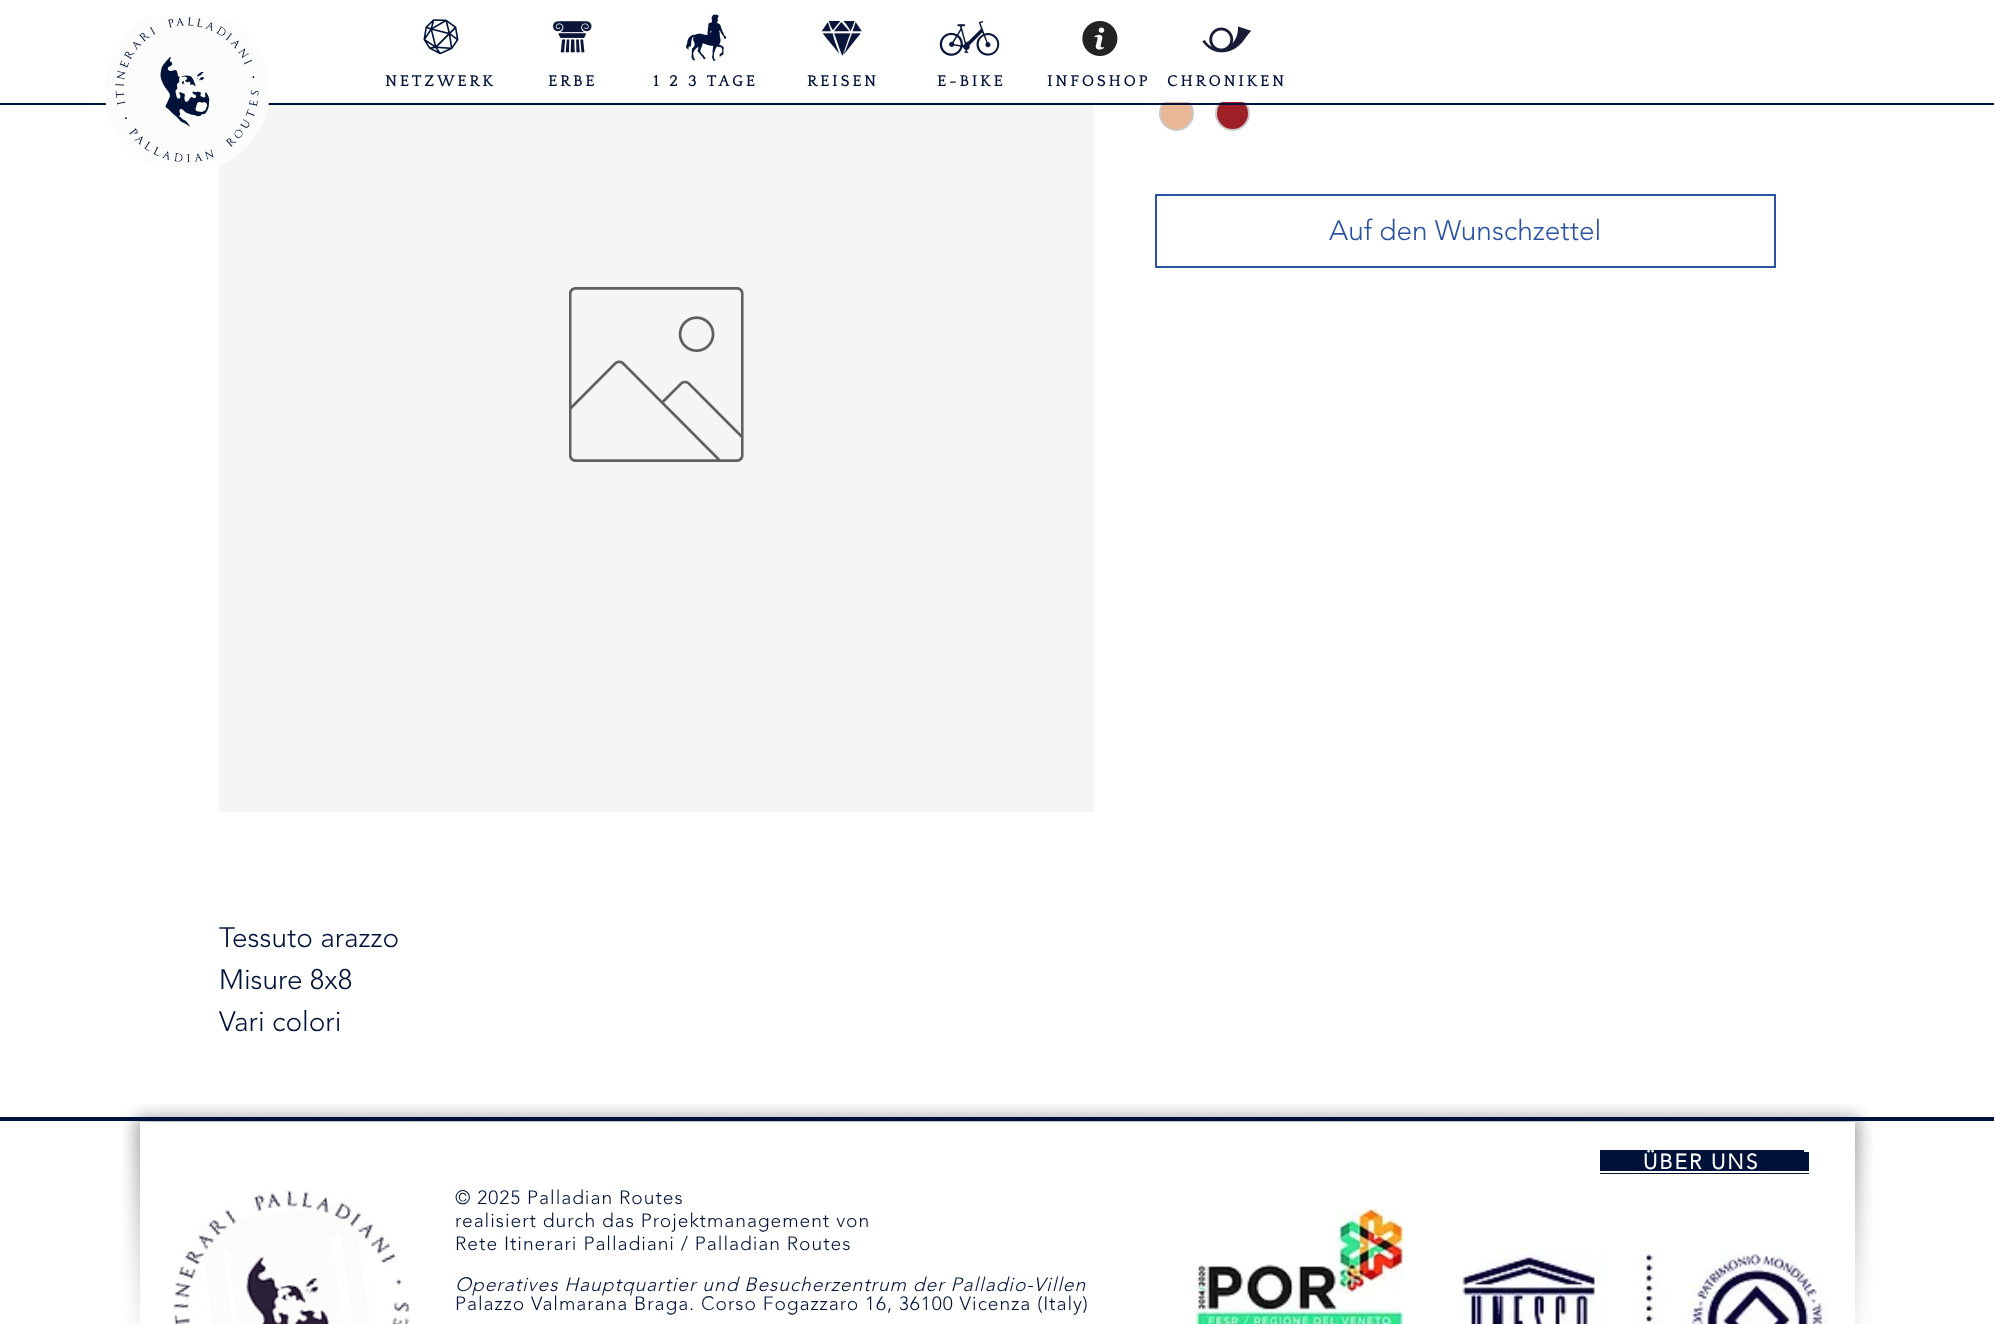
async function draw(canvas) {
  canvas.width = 1994
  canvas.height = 1324
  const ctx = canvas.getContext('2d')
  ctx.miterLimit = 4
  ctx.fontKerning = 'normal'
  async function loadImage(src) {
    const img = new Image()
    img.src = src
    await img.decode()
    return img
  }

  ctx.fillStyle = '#fff'
  ctx.fillRect(0, 0, 1994, 1324)
  ctx.fillStyle = '#e9b795'
  ctx.beginPath()
  ctx.arc(1176.5, 113.5, 16.5, 0, 2 * Math.PI)
  ctx.fill()
  ctx.strokeStyle = '#c9c9c9'
  ctx.lineWidth = 2
  ctx.stroke()
  ctx.fillStyle = '#9e2026'
  ctx.beginPath()
  ctx.arc(1232.5, 113.5, 16.5, 0, 2 * Math.PI)
  ctx.fill()
  ctx.stroke()
  ctx.fillStyle = '#f5f5f5'
  ctx.fillRect(219, 102, 875, 710)
  ctx.fillStyle = '#00123a'
  ctx.fillRect(0, 103, 1994, 2)
  ctx.drawImage(await loadImage('image0.png'), 105, 17, 164, 149)
  ctx.fillStyle = '#fff'
  ctx.fillRect(1163, 96, 83, 6)
  ctx.drawImage(await loadImage('image1.png'), 423, 19, 36, 36)
  ctx.drawImage(await loadImage('image2.png'), 553, 21, 39, 32)
  ctx.drawImage(await loadImage('image3.png'), 686, 14, 41, 47)
  ctx.drawImage(await loadImage('image4.png'), 821, 21, 41, 35)
  ctx.drawImage(await loadImage('image5.png'), 939, 21, 61, 35)
  ctx.drawImage(await loadImage('image6.png'), 1082, 21, 36, 35)
  ctx.drawImage(await loadImage('image7.png'), 1202, 26, 50, 27)
  ctx.letterSpacing = '3.1px'
  ctx.font = 'bold 15.75px Quattrocento'
  ctx.fillStyle = '#00123a'
  ctx.fillText('NETZWERK', 385, 86)
  ctx.fillText('ERBE', 548, 86)
  ctx.fillText('1 2 3 TAGE', 653, 86)
  ctx.fillText('REISEN', 807, 86)
  ctx.fillText('E-BIKE', 937, 86)
  ctx.fillText('INFOSHOP', 1047, 86)
  ctx.fillText('CHRONIKEN', 1167, 86)
  ctx.strokeStyle = '#2c53a2'
  ctx.strokeRect(1156, 195, 619, 72)
  ctx.letterSpacing = '0px'
  ctx.font = '300 28px "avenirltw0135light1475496"'
  ctx.fillStyle = '#2c53a2'
  ctx.fillText('Auf den Wunschzettel', 1329, 240)
  ctx.drawImage(await loadImage('image8.png'), 569, 287, 175, 175)
  ctx.fillStyle = '#00123a'
  ctx.fillText('Tessuto arazzo', 219, 947)
  ctx.fillText('Misure 8x8', 219, 989)
  ctx.fillText('Vari colori', 219, 1031)
  ctx.drawImage(await loadImage('image9.png'), 122, 1104, 80, 220)
  ctx.drawImage(await loadImage('image10.png'), 201, 1104, 1593, 18)
  ctx.drawImage(await loadImage('image11.png'), 1793, 1104, 80, 220)
  ctx.fillStyle = '#fff'
  ctx.fillRect(140, 1122, 1715, 202)
  ctx.fillStyle = '#00123a'
  ctx.fillRect(0, 1117, 1994, 4)
  ctx.fillRect(1600, 1150, 204, 24)
  ctx.letterSpacing = '2px'
  ctx.font = 'bold 21px "avenirltw0135light1475496"'
  ctx.fillStyle = '#fff'
  ctx.fillText('ÜBER UNS', 1643, 1169)
  ctx.fillRect(1600, 1171, 204, 2)
  ctx.fillStyle = '#00123a'
  ctx.fillRect(1804, 1152, 5, 22)
  ctx.fillStyle = '#fff'
  ctx.fillRect(1804, 1171, 5, 2)
  ctx.drawImage(await loadImage('image12.png'), 173, 1190, 237, 134)
  ctx.letterSpacing = '0.95px'
  ctx.font = '300 19.25px "avenirltw0135light1475496"'
  ctx.fillStyle = '#00123a'
  ctx.fillText('© 2025 Palladian Routes', 455, 1204)
  ctx.fillText('realisiert durch das Projektmanagement von', 455, 1227)
  ctx.fillText('Rete Itinerari Palladiani / Palladian Routes', 455, 1250)
  ctx.font = 'italic 300 19.25px "avenirltw0135light1475496"'
  ctx.fillText('Operatives Hauptquartier und Besucherzentrum der Palladio-Villen', 455, 1291)
  ctx.font = '300 19.25px "avenirltw0135light1475496"'
  ctx.fillText('Palazzo Valmarana Braga. Corso Fogazzaro 16, 36100 Vicenza (Italy)', 455, 1310)
  ctx.drawImage(await loadImage('image13.png'), 1195, 1209, 210, 115)
  ctx.drawImage(await loadImage('image14.png'), 1461, 1248, 366, 76)
}

draw(document.querySelector('canvas'))
